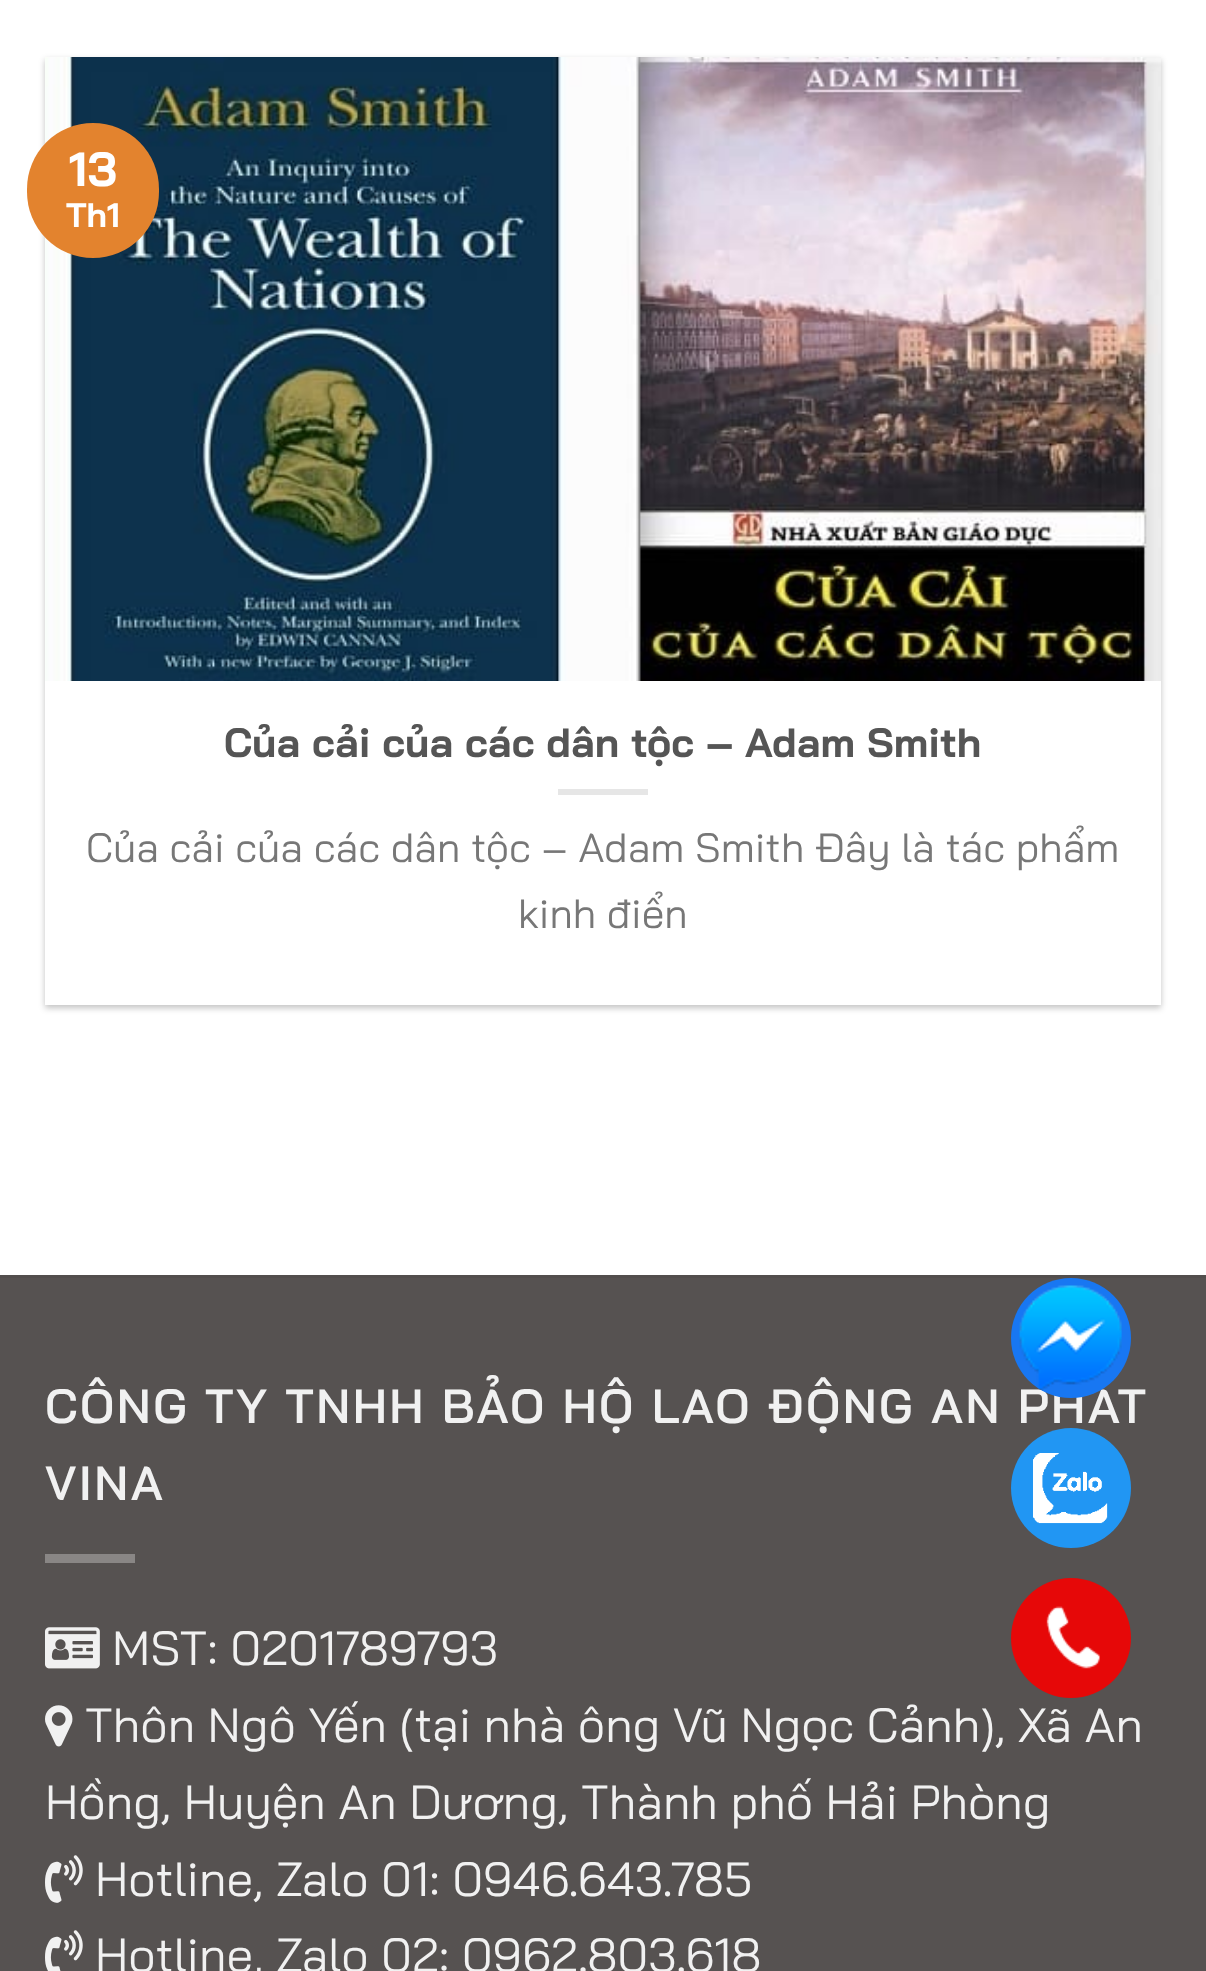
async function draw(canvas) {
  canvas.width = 1206
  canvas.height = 1971
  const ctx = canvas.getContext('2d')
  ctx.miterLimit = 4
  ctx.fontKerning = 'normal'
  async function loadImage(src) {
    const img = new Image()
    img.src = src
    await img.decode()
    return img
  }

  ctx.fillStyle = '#fff'
  ctx.fillRect(0, 0, 1206, 1971)
  ctx.save()
  ctx.beginPath()
  ctx.moveTo(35, 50)
  ctx.lineTo(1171, 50)
  ctx.lineTo(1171, 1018)
  ctx.lineTo(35, 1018)
  ctx.closePath()
  ctx.moveTo(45, 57)
  ctx.lineTo(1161, 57)
  ctx.lineTo(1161, 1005)
  ctx.lineTo(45, 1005)
  ctx.closePath()
  ctx.clip('evenodd')
  ctx.fillStyle = '#0000003d'
  ctx.filter = 'blur(3px)'
  ctx.beginPath()
  ctx.rect(45, 60, 1116, 948)
  ctx.fill()
  ctx.filter = 'none'
  ctx.restore()
  ctx.drawImage(await loadImage('image0.png'), 45, 57, 1116, 624)
  ctx.fillStyle = '#e3832e'
  ctx.beginPath()
  ctx.roundRect(27, 123, 132, 135, 66)
  ctx.fill()
  ctx.font = 'bold 48px Bai Jamjuree'
  ctx.fillStyle = '#fff'
  ctx.fillText('13', 69, 186)
  ctx.font = 'bold 34px Bai Jamjuree'
  ctx.fillText('Th1', 66, 227)
  ctx.font = 'bold 40.8px Bai Jamjuree'
  ctx.fillStyle = '#555'
  ctx.fillText('Của cải của các dân tộc – Adam Smith', 224, 757)
  ctx.fillStyle = '#e6e6e6'
  ctx.fillRect(558, 789, 90, 6)
  ctx.font = '40.8px Bai Jamjuree'
  ctx.fillStyle = '#777'
  ctx.fillText('Của cải của các dân tộc – Adam Smith Đây là tác phẩm', 86, 862)
  ctx.fillText('kinh điển', 518, 928)
  ctx.fillStyle = '#565251'
  ctx.fillRect(0, 1278, 1206, 693)
  ctx.fillStyle = '#524e4d'
  ctx.fillRect(0, 1275, 1206, 3)
  ctx.letterSpacing = '2.4px'
  ctx.font = '600 48px Bai Jamjuree'
  ctx.fillStyle = '#f1f1f1'
  ctx.fillText('CÔNG TY TNHH BẢO HỘ LAO ĐỘNG AN PHÁT', 45, 1423)
  ctx.fillText('VINA', 45, 1500)
  ctx.fillStyle = '#898685'
  ctx.fillRect(45, 1554, 90, 9)
  ctx.drawImage(await loadImage('image1.png'), 45, 1627, 55, 42)
  ctx.letterSpacing = '0px'
  ctx.font = '48px Bai Jamjuree'
  ctx.fillStyle = '#f1f1f1'
  ctx.fillText('MST: 0201789793', 112, 1665)
  ctx.drawImage(await loadImage('image2.png'), 45, 1705, 28, 42)
  ctx.fillText('Thôn Ngô Yến (tại nhà ông Vũ Ngọc Cảnh), Xã An', 85, 1742)
  ctx.fillText('Hồng, Huyện An Dương, Thành phố Hải Phòng', 45, 1819)
  ctx.drawImage(await loadImage('image3.png'), 45, 1855, 38, 48)
  ctx.fillText('Hotline, Zalo 01: 0946.643.785', 95, 1896)
  ctx.drawImage(await loadImage('image4.png'), 45, 1930, 38, 41)
  ctx.fillText('Hotline, Zalo 02: 0962.803.618', 95, 1972)
  ctx.fillStyle = '#1877f2'
  ctx.beginPath()
  ctx.arc(1071, 1338, 60, 0, 2 * Math.PI)
  ctx.fill()
  ctx.drawImage(await loadImage('image5.png'), 1019, 1285, 103, 106)
  ctx.fillStyle = '#2196f3'
  ctx.beginPath()
  ctx.arc(1071, 1488, 60, 0, 2 * Math.PI)
  ctx.fill()
  ctx.drawImage(await loadImage('image6.png'), 1033, 1453, 75, 71)
  ctx.fillStyle = '#e60808'
  ctx.beginPath()
  ctx.arc(1071, 1638, 60, 0, 2 * Math.PI)
  ctx.fill()
  ctx.drawImage(await loadImage('image7.png'), 1046, 1606, 54, 63)
}

draw(document.querySelector('canvas'))
